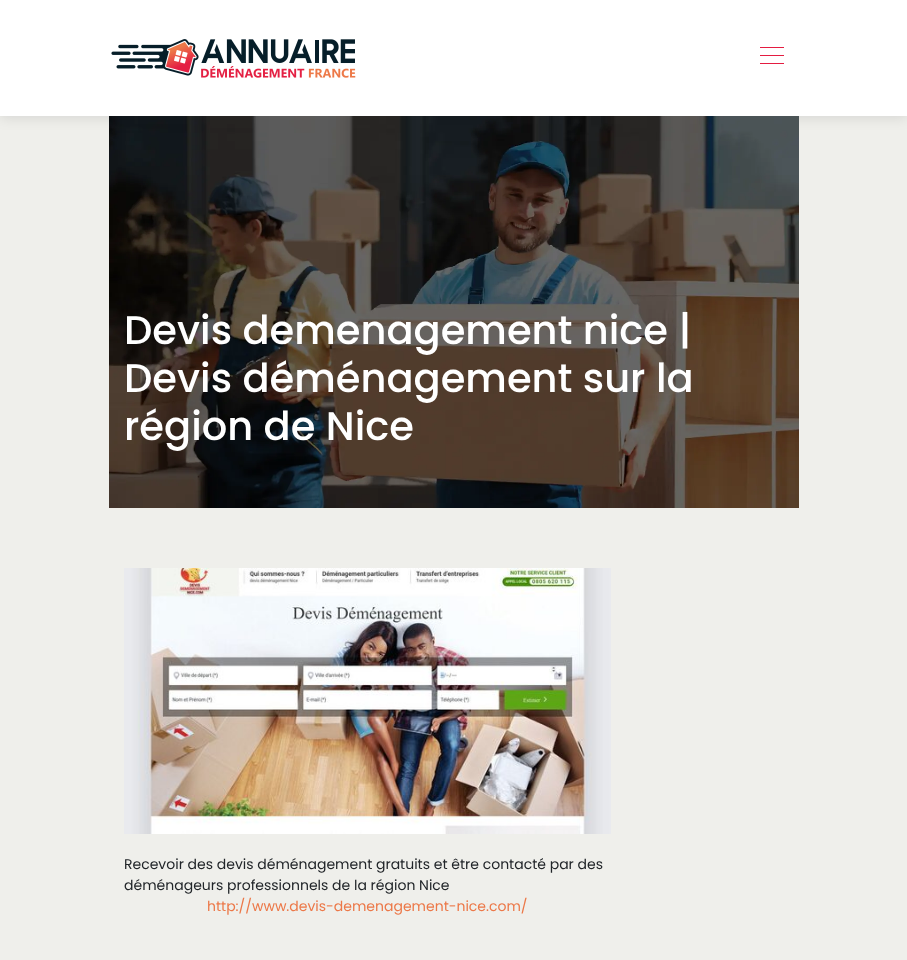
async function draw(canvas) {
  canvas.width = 907
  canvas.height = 960
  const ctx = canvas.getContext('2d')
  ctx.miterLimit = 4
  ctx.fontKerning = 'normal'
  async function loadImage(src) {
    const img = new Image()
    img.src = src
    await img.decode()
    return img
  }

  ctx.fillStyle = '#efefeb'
  ctx.fillRect(0, 0, 907, 960)
  ctx.fillStyle = '#0000001a'
  ctx.filter = 'blur(6.5px)'
  ctx.beginPath()
  ctx.rect(0, 2, 907, 116)
  ctx.fill()
  ctx.filter = 'none'
  ctx.fillStyle = '#fff'
  ctx.fillRect(0, 0, 907, 116)
  ctx.drawImage(await loadImage('image0.png'), 111, 39, 245, 39)
  ctx.fillStyle = '#e41c41'
  ctx.fillRect(760, 47, 24, 1)
  ctx.fillRect(760, 55, 24, 1)
  ctx.fillRect(760, 63, 24, 1)
  ctx.drawImage(await loadImage('image1.png'), 109, 116, 690, 392)
  ctx.font = '500 40px Poppins'
  ctx.fillStyle = '#fff'
  ctx.fillText('Devis demenagement nice |', 124, 344)
  ctx.fillText('Devis déménagement sur la', 124, 392)
  ctx.fillText('région de Nice', 124, 440)
  ctx.drawImage(await loadImage('image2.png'), 124, 568, 487, 266)
  ctx.font = '14px Poppins'
  ctx.fillStyle = '#212529'
  ctx.fillText('Recevoir des devis déménagement gratuits et être contacté par des', 124, 869)
  ctx.fillText('déménageurs professionnels de la région Nice', 124, 890)
  ctx.fillStyle = '#ec7848'
  ctx.fillText('http://www.devis-demenagement-nice.com/', 207, 911)
}

draw(document.querySelector('canvas'))
